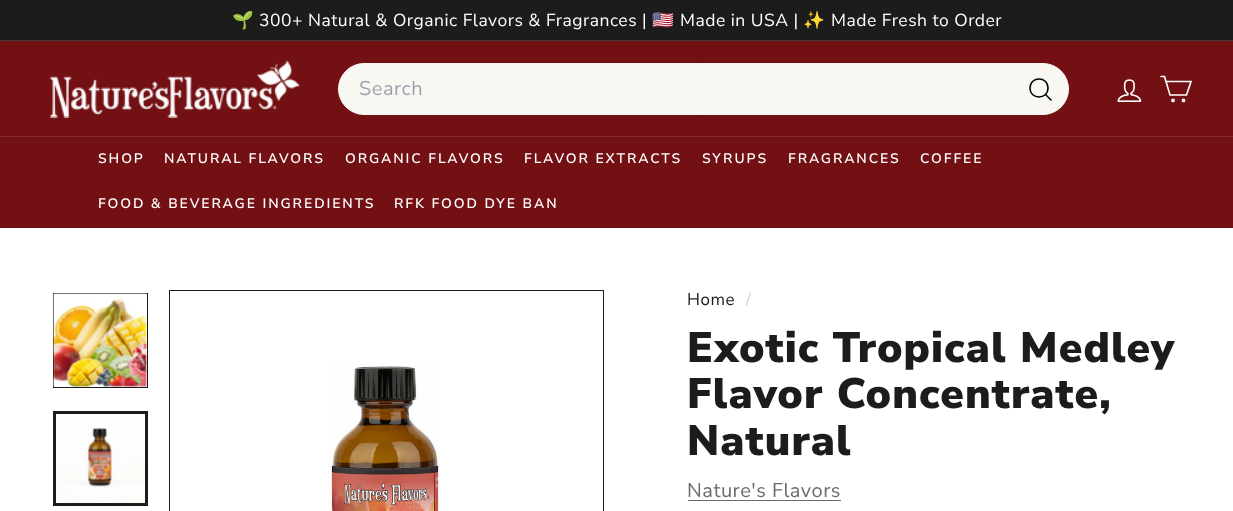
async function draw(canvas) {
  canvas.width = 1233
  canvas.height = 511
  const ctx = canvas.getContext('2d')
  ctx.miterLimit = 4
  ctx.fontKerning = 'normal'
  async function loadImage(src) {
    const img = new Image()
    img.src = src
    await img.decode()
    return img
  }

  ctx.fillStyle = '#fff'
  ctx.fillRect(0, 0, 1233, 511)
  ctx.fillStyle = '#1c1c1c'
  ctx.fillRect(0, 0, 1233, 40)
  ctx.letterSpacing = '0.5px'
  ctx.font = '17.5px Noto Color Emoji'
  ctx.fillStyle = '#fff'
  ctx.fillText('🌱', 232, 26)
  ctx.font = '200 17.5px Nunito Sans'
  ctx.fillText('300+ Natural & Organic Flavors & Fragrances |', 259, 26)
  ctx.font = '17.5px Noto Color Emoji'
  ctx.fillText('🇺🇸', 652, 26)
  ctx.font = '200 17.5px Nunito Sans'
  ctx.fillText('Made in USA |', 680, 26)
  ctx.font = '17.5px Noto Color Emoji'
  ctx.fillText('✨', 803, 26)
  ctx.font = '200 17.5px Nunito Sans'
  ctx.fillText('Made Fresh to Order', 831, 26)
  ctx.fillStyle = '#3e3e3e'
  ctx.fillRect(0, 40, 1233, 1)
  ctx.fillStyle = '#721014'
  ctx.fillRect(0, 41, 1233, 95)
  ctx.drawImage(await loadImage('image0.png'), 50, 60, 250, 58)
  ctx.fillStyle = '#f9f7f2'
  ctx.beginPath()
  ctx.roundRect(338.5, 63.5, 730, 51, 25.5)
  ctx.fill()
  ctx.strokeStyle = '#f9f7f2'
  ctx.stroke()
  ctx.font = '200 20px Nunito Sans'
  ctx.fillStyle = '#9ca3af'
  ctx.fillText('Search', 359, 95)
  ctx.beginPath()
  ctx.moveTo(1048, 88)
  ctx.bezierCurveTo(1048, 100, 1030, 100, 1030, 88)
  ctx.bezierCurveTo(1030, 76, 1048, 76, 1048, 88)
  ctx.moveTo(1051.5, 100.5)
  ctx.lineTo(1045.5, 94.5)
  ctx.strokeStyle = '#000'
  ctx.lineWidth = 1.5
  ctx.stroke()
  ctx.drawImage(await loadImage('image1.png'), 1117, 79, 25, 23)
  ctx.beginPath()
  ctx.moveTo(1166, 81.5)
  ctx.lineTo(1191, 81.5)
  ctx.lineTo(1186.5, 95)
  ctx.lineTo(1170, 95)
  ctx.lineTo(1164.5, 76.5)
  ctx.lineTo(1160.5, 76.5)
  ctx.strokeStyle = '#fff'
  ctx.lineWidth = 1.6
  ctx.stroke()
  ctx.beginPath()
  ctx.arc(1173, 100.4, 1.1, 0, 2 * Math.PI)
  ctx.stroke()
  ctx.beginPath()
  ctx.arc(1183.5, 100.4, 1.1, 0, 2 * Math.PI)
  ctx.stroke()
  ctx.fillStyle = '#721014'
  ctx.fillRect(0, 137, 1233, 91)
  ctx.fillStyle = '#80282c'
  ctx.fillRect(0, 136, 1233, 1)
  ctx.letterSpacing = '1.9px'
  ctx.font = '600 13.75px Nunito Sans'
  ctx.fillStyle = '#fff'
  ctx.fillText('SHOP', 98, 163)
  ctx.fillText('NATURAL FLAVORS', 164, 163)
  ctx.fillText('ORGANIC FLAVORS', 345, 163)
  ctx.fillText('FLAVOR EXTRACTS', 524, 163)
  ctx.fillText('SYRUPS', 702, 163)
  ctx.fillText('FRAGRANCES', 788, 163)
  ctx.fillText('COFFEE', 920, 163)
  ctx.fillText('FOOD & BEVERAGE INGREDIENTS', 98, 208)
  ctx.fillText('RFK FOOD DYE BAN', 394, 208)
  ctx.strokeStyle = '#1c1c1c'
  ctx.lineWidth = 1
  ctx.strokeRect(53.5, 293.5, 94, 94)
  ctx.drawImage(await loadImage('image2.png'), 53, 293, 94, 94)
  ctx.drawImage(await loadImage('image3.png'), 56, 414, 89, 89)
  ctx.lineWidth = 3
  ctx.strokeRect(54.5, 412.5, 92, 92)
  ctx.lineWidth = 1
  ctx.strokeRect(169.5, 290.5, 434, 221)
  ctx.drawImage(await loadImage('image4.png'), 328, 366, 112, 145)
  ctx.letterSpacing = '0.5px'
  ctx.font = '200 17px Nunito Sans'
  ctx.fillStyle = '#1c1c1c'
  ctx.fillText('Home', 687, 305)
  ctx.fillStyle = '#d2d2d2'
  ctx.fillText('/', 746, 305)
  ctx.letterSpacing = '1.1px'
  ctx.font = '900 42.5px Nunito Sans'
  ctx.fillStyle = '#1c1c1c'
  ctx.fillText('Exotic Tropical Medley', 687, 362)
  ctx.fillText('Flavor Concentrate,', 687, 408)
  ctx.fillText('Natural', 687, 455)
  ctx.letterSpacing = '0.5px'
  ctx.font = '200 20px Nunito Sans'
  ctx.fillStyle = '#6b6b6b'
  ctx.fillText('Nature\'s Flavors', 687, 497)
  ctx.fillRect(688, 500, 153, 1)
}

draw(document.querySelector('canvas'))
